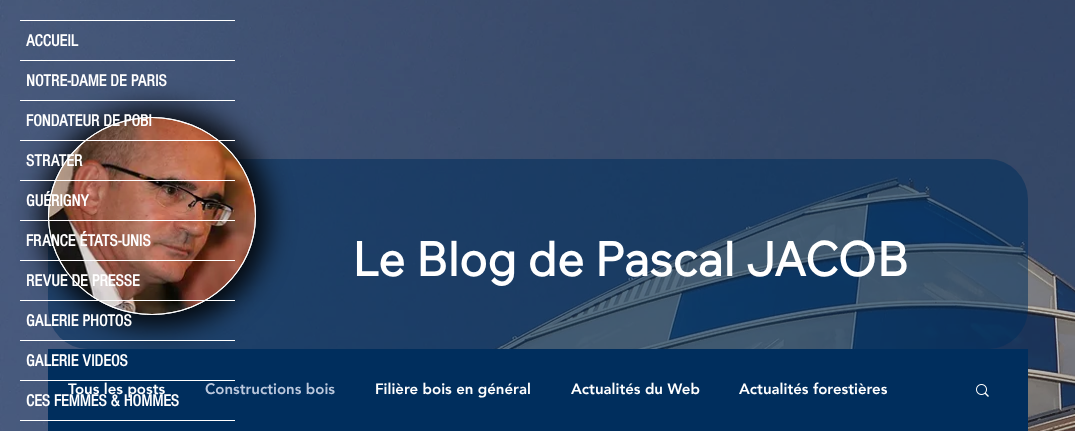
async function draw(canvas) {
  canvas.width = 1075
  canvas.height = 431
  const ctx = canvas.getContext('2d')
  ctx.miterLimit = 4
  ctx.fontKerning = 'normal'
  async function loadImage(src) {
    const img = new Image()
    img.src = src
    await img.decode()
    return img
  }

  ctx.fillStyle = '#474a59'
  ctx.fillRect(0, 0, 1075, 431)
  ctx.drawImage(await loadImage('image0.png'), 0, 0, 1075, 431)
  ctx.fillStyle = '#fff'
  ctx.fillRect(20, 20, 215, 1)
  ctx.fillRect(20, 60, 215, 1)
  ctx.font = 'bold 17px "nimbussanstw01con"'
  ctx.fillText('ACCUEIL', 26, 46)
  ctx.fillStyle = '#002e5d8a'
  ctx.beginPath()
  ctx.roundRect(48, 159, 980, 190, 40)
  ctx.fill()
  ctx.fillStyle = '#000000de'
  ctx.filter = 'blur(13px)'
  ctx.beginPath()
  ctx.roundRect(41, 109, 228, 218, 109)
  ctx.fill()
  ctx.filter = 'none'
  ctx.fillStyle = '#fff'
  ctx.fillRect(20, 100, 215, 1)
  ctx.fillText('NOTRE-DAME DE PARIS', 26, 86)
  ctx.beginPath()
  ctx.ellipse(152, 216, 104, 99, 0, 0, 2 * Math.PI)
  ctx.fill()
  ctx.beginPath()
  ctx.moveTo(152, 117.5)
  ctx.bezierCurveTo(209, 117.5, 255.5, 161.5, 255.5, 216)
  ctx.bezierCurveTo(255.5, 270.5, 209, 314.5, 152, 314.5)
  ctx.bezierCurveTo(95, 314.5, 48.5, 270.5, 48.5, 216)
  ctx.bezierCurveTo(48.5, 161.5, 95, 117.5, 152, 117.5)
  ctx.closePath()
  ctx.strokeStyle = '#fff'
  ctx.stroke()
  ctx.drawImage(await loadImage('image1.png'), 49, 118, 206, 196)
  ctx.fillRect(20, 140, 215, 1)
  ctx.fillText('FONDATEUR DE POBI', 26, 126)
  ctx.fillRect(20, 180, 215, 1)
  ctx.fillText('STRATER', 26, 166)
  ctx.fillRect(20, 220, 215, 1)
  ctx.fillText('GUÉRIGNY', 26, 206)
  ctx.fillRect(20, 260, 215, 1)
  ctx.fillText('FRANCE ÉTATS-UNIS', 26, 246)
  ctx.fillRect(20, 300, 215, 1)
  ctx.fillText('REVUE DE PRESSE', 26, 286)
  ctx.fillRect(20, 340, 215, 1)
  ctx.fillText('GALERIE PHOTOS', 26, 326)
  ctx.fillStyle = '#002e5d'
  ctx.fillRect(48, 349, 980, 82)
  ctx.fillStyle = '#fff'
  ctx.fillRect(20, 380, 215, 1)
  ctx.fillText('GALERIE VIDEOS', 26, 366)
  ctx.fillRect(20, 420, 215, 1)
  ctx.fillText('CES FEMMES & HOMMES', 26, 406)
  ctx.font = 'bold 47px Wix Madefor Text'
  ctx.fillText('Le Blog de Pascal JACOB', 352, 276)
  ctx.font = '900 15px "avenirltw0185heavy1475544"'
  ctx.fillText('Tous les posts', 68, 394)
  ctx.fillStyle = '#bbc8dd'
  ctx.fillText('Constructions bois', 205, 394)
  ctx.fillStyle = '#fff'
  ctx.fillText('Filière bois en général', 375, 394)
  ctx.fillText('Actualités du Web', 571, 394)
  ctx.fillText('Actualités forestières', 739, 394)
  ctx.drawImage(await loadImage('image2.png'), 976, 384, 13, 13)
}

draw(document.querySelector('canvas'))
